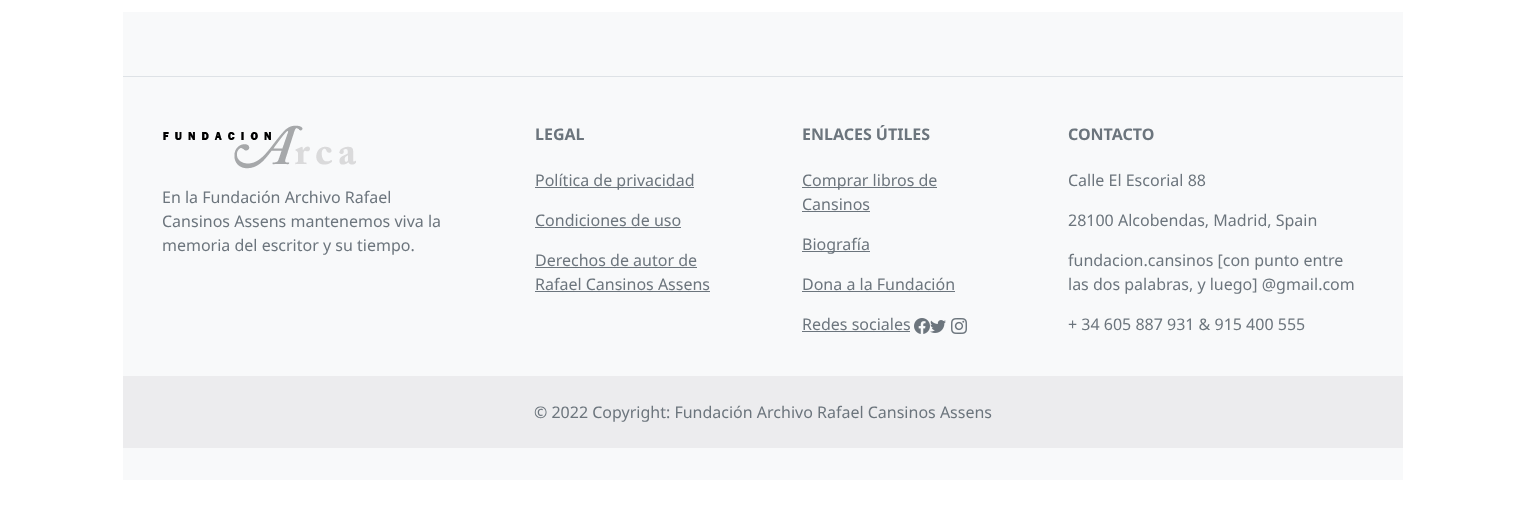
async function draw(canvas) {
  canvas.width = 1526
  canvas.height = 512
  const ctx = canvas.getContext('2d')
  ctx.miterLimit = 4
  ctx.fontKerning = 'normal'
  async function loadImage(src) {
    const img = new Image()
    img.src = src
    await img.decode()
    return img
  }

  ctx.fillStyle = '#fff'
  ctx.fillRect(0, 0, 1526, 512)
  ctx.fillStyle = '#f8f9fa'
  ctx.fillRect(123, 12, 1280, 468)
  ctx.fillStyle = '#dee2e6'
  ctx.fillRect(123, 76, 1280, 1)
  ctx.drawImage(await loadImage('image0.png'), 163, 125, 193, 44)
  ctx.font = '16px Noto Sans'
  ctx.fillStyle = '#6c757d'
  ctx.fillText('En la Fundación Archivo Rafael', 162, 203)
  ctx.fillText('Cansinos Assens mantenemos viva la', 162, 227)
  ctx.fillText('memoria del escritor y su tiempo.', 162, 251)
  ctx.font = 'bold 16px Noto Sans'
  ctx.fillText('LEGAL', 535, 140)
  ctx.fillRect(535, 187, 159, 1)
  ctx.font = '16px Noto Sans'
  ctx.fillText('Política de privacidad', 535, 186)
  ctx.fillText('Condiciones de uso', 535, 226)
  ctx.fillRect(535, 227, 146, 1)
  ctx.fillText('Derechos de autor de', 535, 266)
  ctx.fillRect(535, 267, 162, 1)
  ctx.fillText('Rafael Cansinos Assens', 535, 290)
  ctx.fillRect(535, 291, 175, 1)
  ctx.font = 'bold 16px Noto Sans'
  ctx.fillText('ENLACES ÚTILES', 802, 140)
  ctx.fillRect(802, 187, 135, 1)
  ctx.font = '16px Noto Sans'
  ctx.fillText('Comprar libros de', 802, 186)
  ctx.fillText('Cansinos', 802, 210)
  ctx.fillRect(802, 211, 68, 1)
  ctx.fillRect(802, 251, 68, 1)
  ctx.fillText('Biografía', 802, 250)
  ctx.fillText('Dona a la Fundación', 802, 290)
  ctx.fillRect(802, 291, 153, 1)
  ctx.fillText('Redes sociales', 802, 330)
  ctx.fillRect(802, 331, 108, 1)
  ctx.drawImage(await loadImage('image1.png'), 914, 318, 16, 16)
  ctx.drawImage(await loadImage('image2.png'), 930, 320, 16, 13)
  ctx.drawImage(await loadImage('image3.png'), 951, 318, 16, 16)
  ctx.font = 'bold 16px Noto Sans'
  ctx.fillText('CONTACTO', 1068, 140)
  ctx.font = '16px Noto Sans'
  ctx.fillText('Calle El Escorial 88', 1068, 186)
  ctx.fillText('28100 Alcobendas, Madrid, Spain', 1068, 226)
  ctx.fillText('fundacion.cansinos [con punto entre', 1068, 266)
  ctx.fillText('las dos palabras, y luego] @gmail.com', 1068, 290)
  ctx.fillText('+ 34 605 887 931 & 915 400 555', 1068, 330)
  ctx.fillStyle = '#ececee'
  ctx.fillRect(123, 376, 1280, 72)
  ctx.fillStyle = '#6c757d'
  ctx.fillText('© 2022 Copyright: Fundación Archivo Rafael Cansinos Assens', 534, 418)
}

draw(document.querySelector('canvas'))
